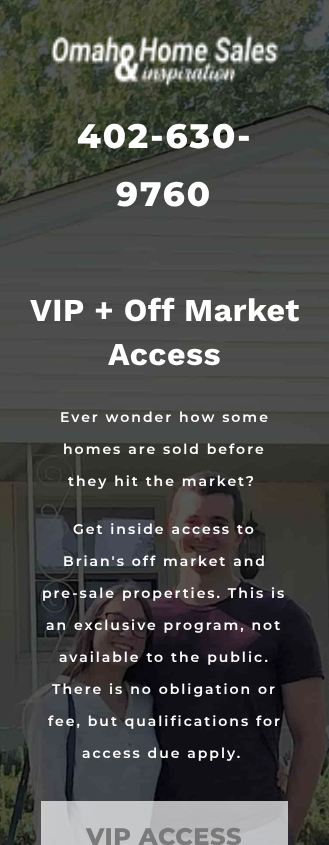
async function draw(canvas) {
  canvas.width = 329
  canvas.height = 845
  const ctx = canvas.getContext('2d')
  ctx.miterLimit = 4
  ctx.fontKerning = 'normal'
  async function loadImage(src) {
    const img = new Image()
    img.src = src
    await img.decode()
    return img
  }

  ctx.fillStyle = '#fff'
  ctx.fillRect(0, 0, 329, 845)
  ctx.drawImage(await loadImage('image0.png'), 0, 0, 329, 845)
  ctx.drawImage(await loadImage('image1.png'), 51, 34, 228, 54)
  ctx.letterSpacing = '2px'
  ctx.font = '800 34px Montserrat'
  ctx.fillText('402-630-', 77, 148)
  ctx.fillText('9760', 116, 206)
  ctx.letterSpacing = '0.5px'
  ctx.font = 'bold 32px Work Sans'
  ctx.fillText('VIP + Off Market', 30, 321)
  ctx.fillText('Access', 108, 365)
  ctx.letterSpacing = '2px'
  ctx.font = '600 14px Montserrat'
  ctx.fillText('Ever wonder how some', 60, 422)
  ctx.fillText('homes are sold before', 63, 454)
  ctx.fillText('they hit the market?', 68, 486)
  ctx.fillText('Get inside access to', 73, 534)
  ctx.fillText('Brian\'s off market and', 63, 566)
  ctx.fillText('pre-sale properties. This is', 42, 598)
  ctx.fillText('an exclusive program, not', 46, 630)
  ctx.fillText('available to the public.', 59, 662)
  ctx.fillText('There is no obligation or', 52, 694)
  ctx.fillText('fee, but qualifications for', 48, 726)
  ctx.fillText('access due apply.', 82, 758)
  ctx.fillStyle = '#ffffffb3'
  ctx.fillRect(41, 801, 247, 44)
  ctx.letterSpacing = '0.5px'
  ctx.font = '800 24px Montserrat'
  ctx.fillStyle = '#7a7a7a'
  ctx.fillText('VIP ACCESS', 86, 845)
}

draw(document.querySelector('canvas'))
